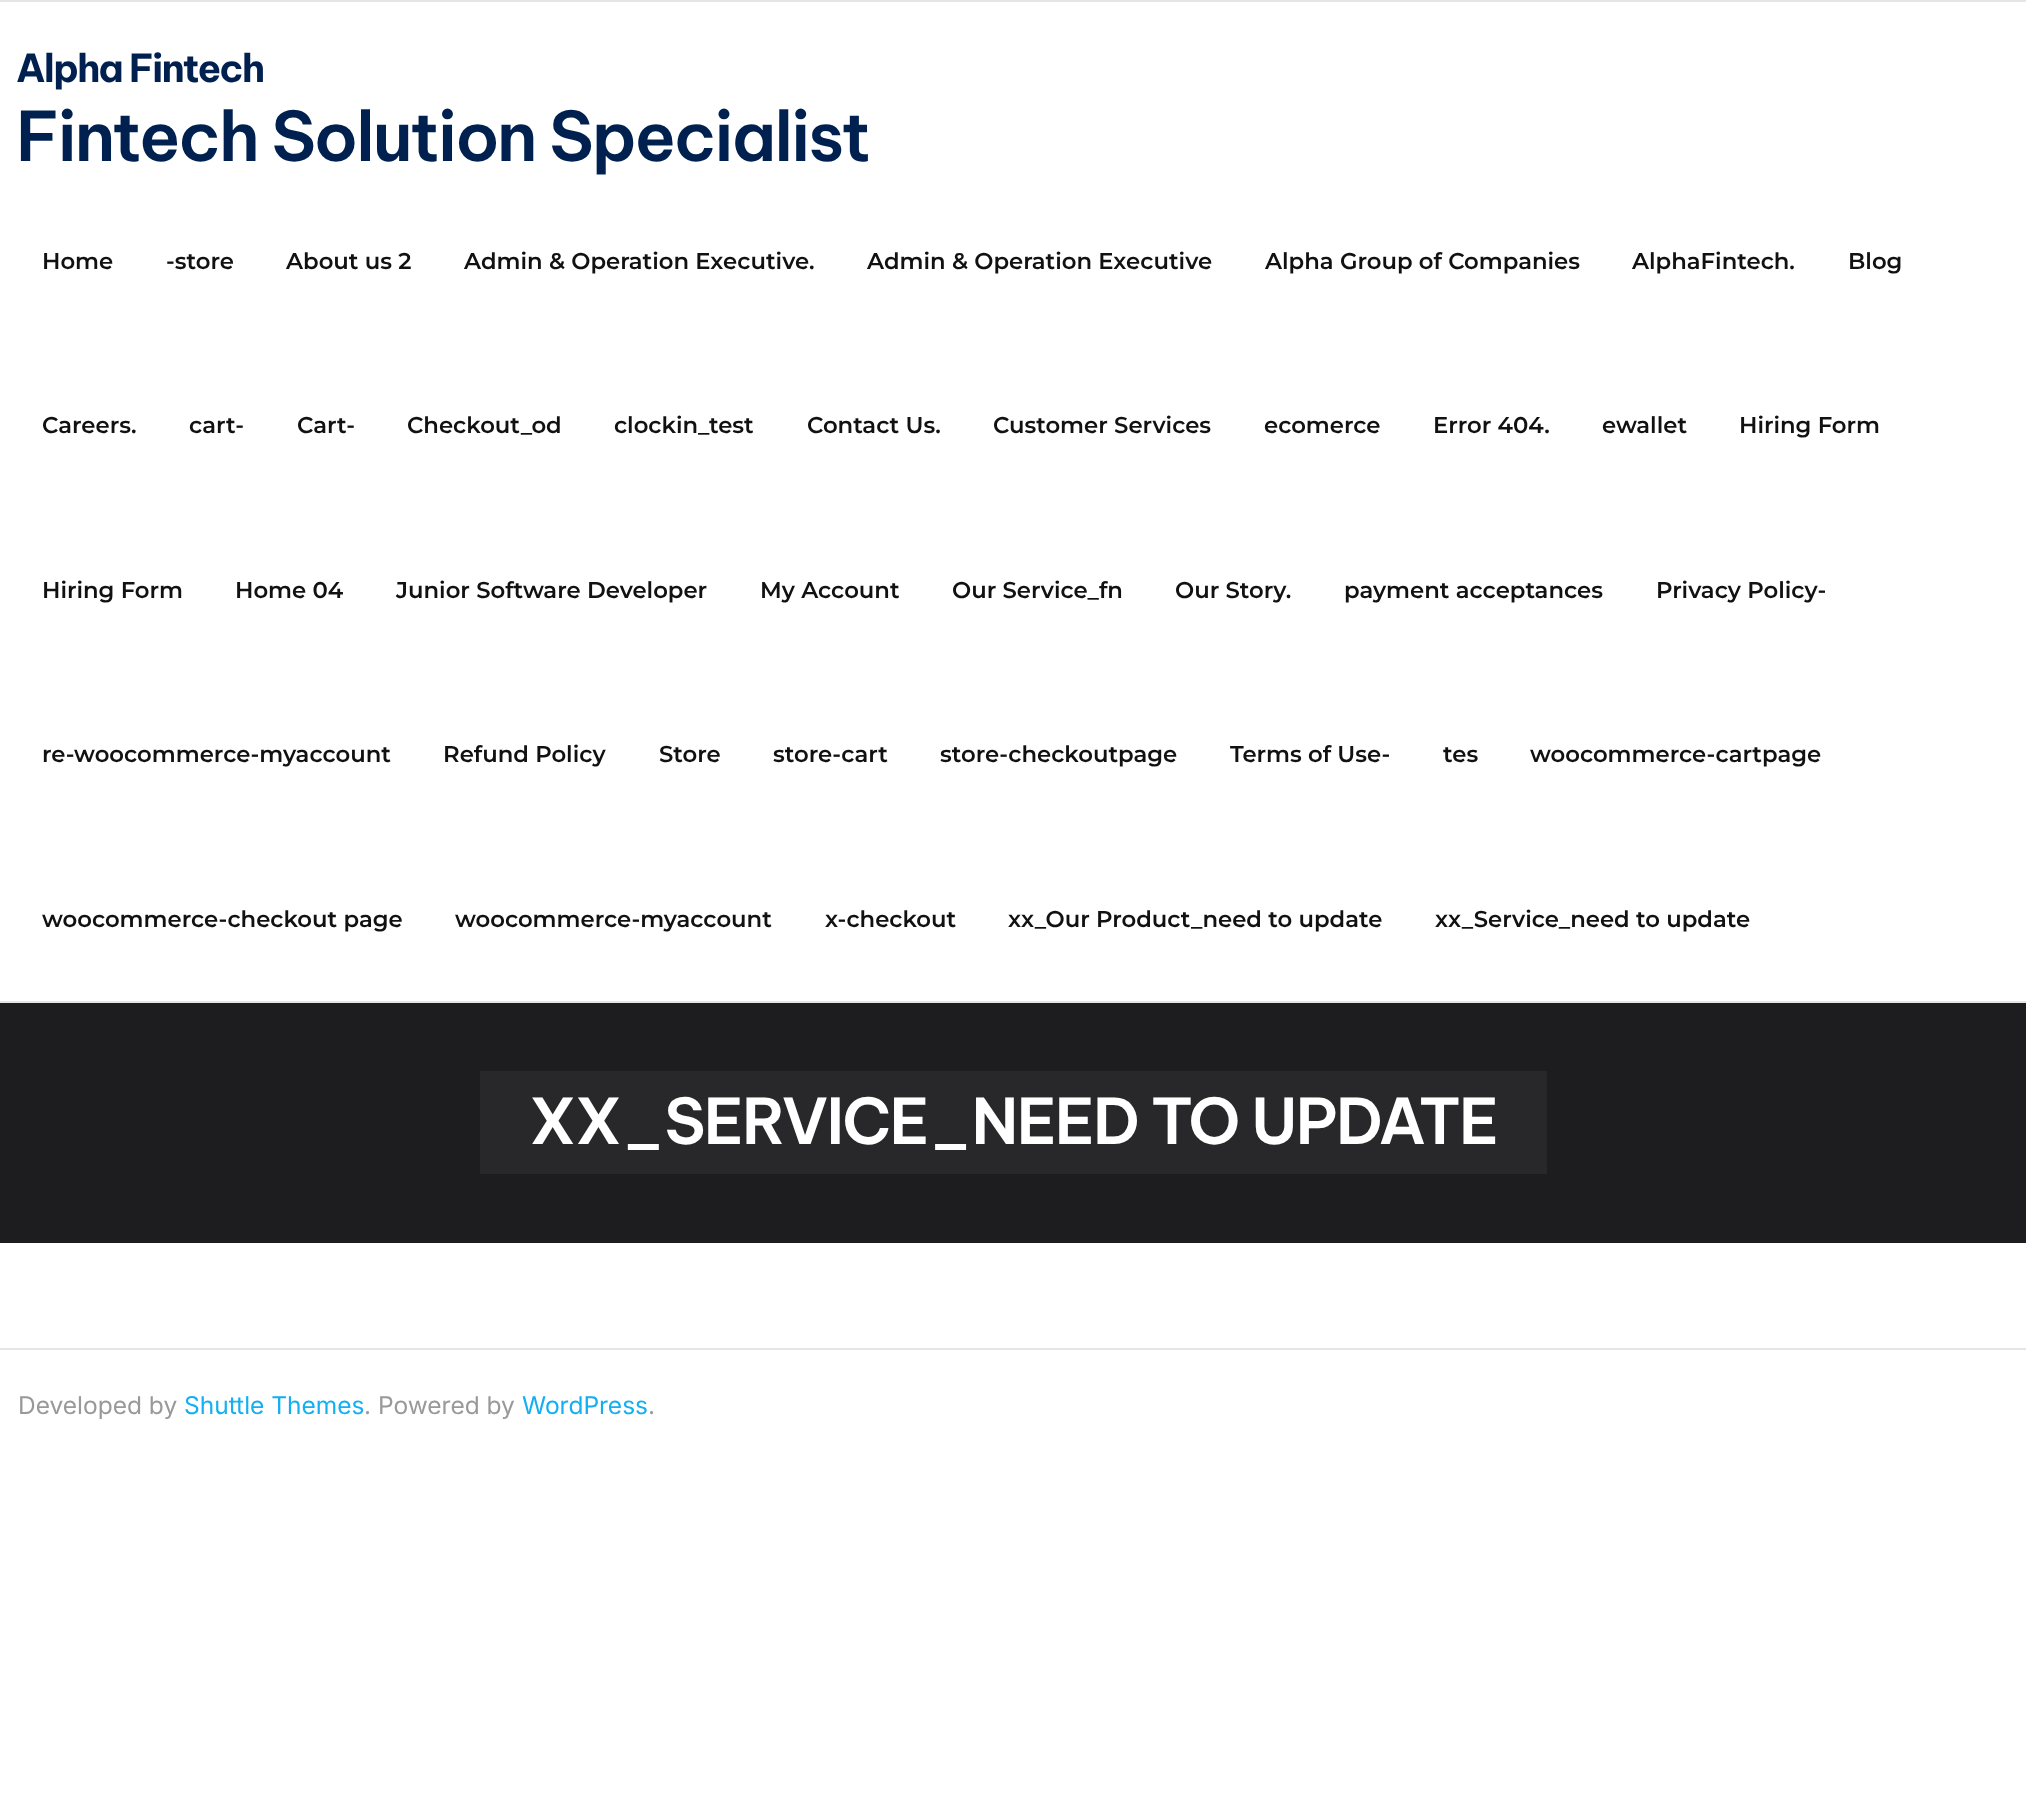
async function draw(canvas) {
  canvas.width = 2026
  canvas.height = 1811
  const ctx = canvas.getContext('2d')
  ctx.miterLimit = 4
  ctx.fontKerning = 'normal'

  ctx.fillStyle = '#fff'
  ctx.fillRect(0, 0, 2026, 1811)
  ctx.fillStyle = '#e5e5e5'
  ctx.fillRect(0, 0, 2026, 2)
  ctx.fillRect(0, 1001, 2026, 2)
  ctx.letterSpacing = '-1.75px'
  ctx.font = 'bold 38.5px Be Vietnam Pro'
  ctx.fillStyle = '#00214f'
  ctx.fillText('Alpha Fintech', 16, 82)
  ctx.letterSpacing = '-2.1px'
  ctx.font = '600 68.25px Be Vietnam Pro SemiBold'
  ctx.fillText('Fintech Solution Specialist', 16, 161)
  ctx.letterSpacing = '0px'
  ctx.font = '600 22.75px Montserrat'
  ctx.fillStyle = '#111'
  ctx.fillText('Home', 42, 269)
  ctx.fillText('-store', 166, 269)
  ctx.fillText('About us 2', 286, 269)
  ctx.fillText('Admin & Operation Executive.', 464, 269)
  ctx.fillText('Admin & Operation Executive', 867, 269)
  ctx.fillText('Alpha Group of Companies', 1265, 269)
  ctx.fillText('AlphaFintech.', 1632, 269)
  ctx.fillText('Blog', 1848, 269)
  ctx.fillText('Careers.', 42, 433)
  ctx.fillText('cart-', 189, 433)
  ctx.fillText('Cart-', 297, 433)
  ctx.fillText('Checkout_od', 407, 433)
  ctx.fillText('clockin_test', 614, 433)
  ctx.fillText('Contact Us.', 807, 433)
  ctx.fillText('Customer Services', 993, 433)
  ctx.fillText('ecomerce', 1264, 433)
  ctx.fillText('Error 404.', 1433, 433)
  ctx.fillText('ewallet', 1602, 433)
  ctx.fillText('Hiring Form', 1739, 433)
  ctx.fillText('Hiring Form', 42, 598)
  ctx.fillText('Home 04', 235, 598)
  ctx.fillText('Junior Software Developer', 396, 598)
  ctx.fillText('My Account', 760, 598)
  ctx.fillText('Our Service_fn', 952, 598)
  ctx.fillText('Our Story.', 1175, 598)
  ctx.fillText('payment acceptances', 1344, 598)
  ctx.fillText('Privacy Policy-', 1656, 598)
  ctx.fillText('re-woocommerce-myaccount', 42, 762)
  ctx.fillText('Refund Policy', 443, 762)
  ctx.fillText('Store', 659, 762)
  ctx.fillText('store-cart', 773, 762)
  ctx.fillText('store-checkoutpage', 940, 762)
  ctx.fillText('Terms of Use-', 1230, 762)
  ctx.fillText('tes', 1443, 762)
  ctx.fillText('woocommerce-cartpage', 1530, 762)
  ctx.fillText('woocommerce-checkout page', 42, 927)
  ctx.fillText('woocommerce-myaccount', 455, 927)
  ctx.fillText('x-checkout', 825, 927)
  ctx.fillText('xx_Our Product_need to update', 1008, 927)
  ctx.fillText('xx_Service_need to update', 1435, 927)
  ctx.fillStyle = '#1d1d1f'
  ctx.fillRect(0, 1003, 2026, 240)
  ctx.fillStyle = '#28282a'
  ctx.fillRect(480, 1071, 1067, 103)
  ctx.letterSpacing = '-1.75px'
  ctx.font = '600 63px Be Vietnam Pro SemiBold'
  ctx.fillStyle = '#fff'
  ctx.fillText('XX_SERVICE_NEED TO UPDATE', 529, 1144)
  ctx.fillStyle = '#e5e5e5'
  ctx.fillRect(0, 1348, 2026, 2)
  ctx.letterSpacing = '0px'
  ctx.font = '24.5px Inter'
  ctx.fillStyle = '#999'
  ctx.fillText('Developed by', 18, 1414)
  ctx.fillStyle = '#13aff0'
  ctx.fillText('Shuttle Themes', 184, 1414)
  ctx.fillStyle = '#999'
  ctx.fillText('. Powered by', 364, 1414)
  ctx.fillStyle = '#13aff0'
  ctx.fillText('WordPress', 522, 1414)
  ctx.fillStyle = '#999'
  ctx.fillText('.', 648, 1414)
}

draw(document.querySelector('canvas'))
